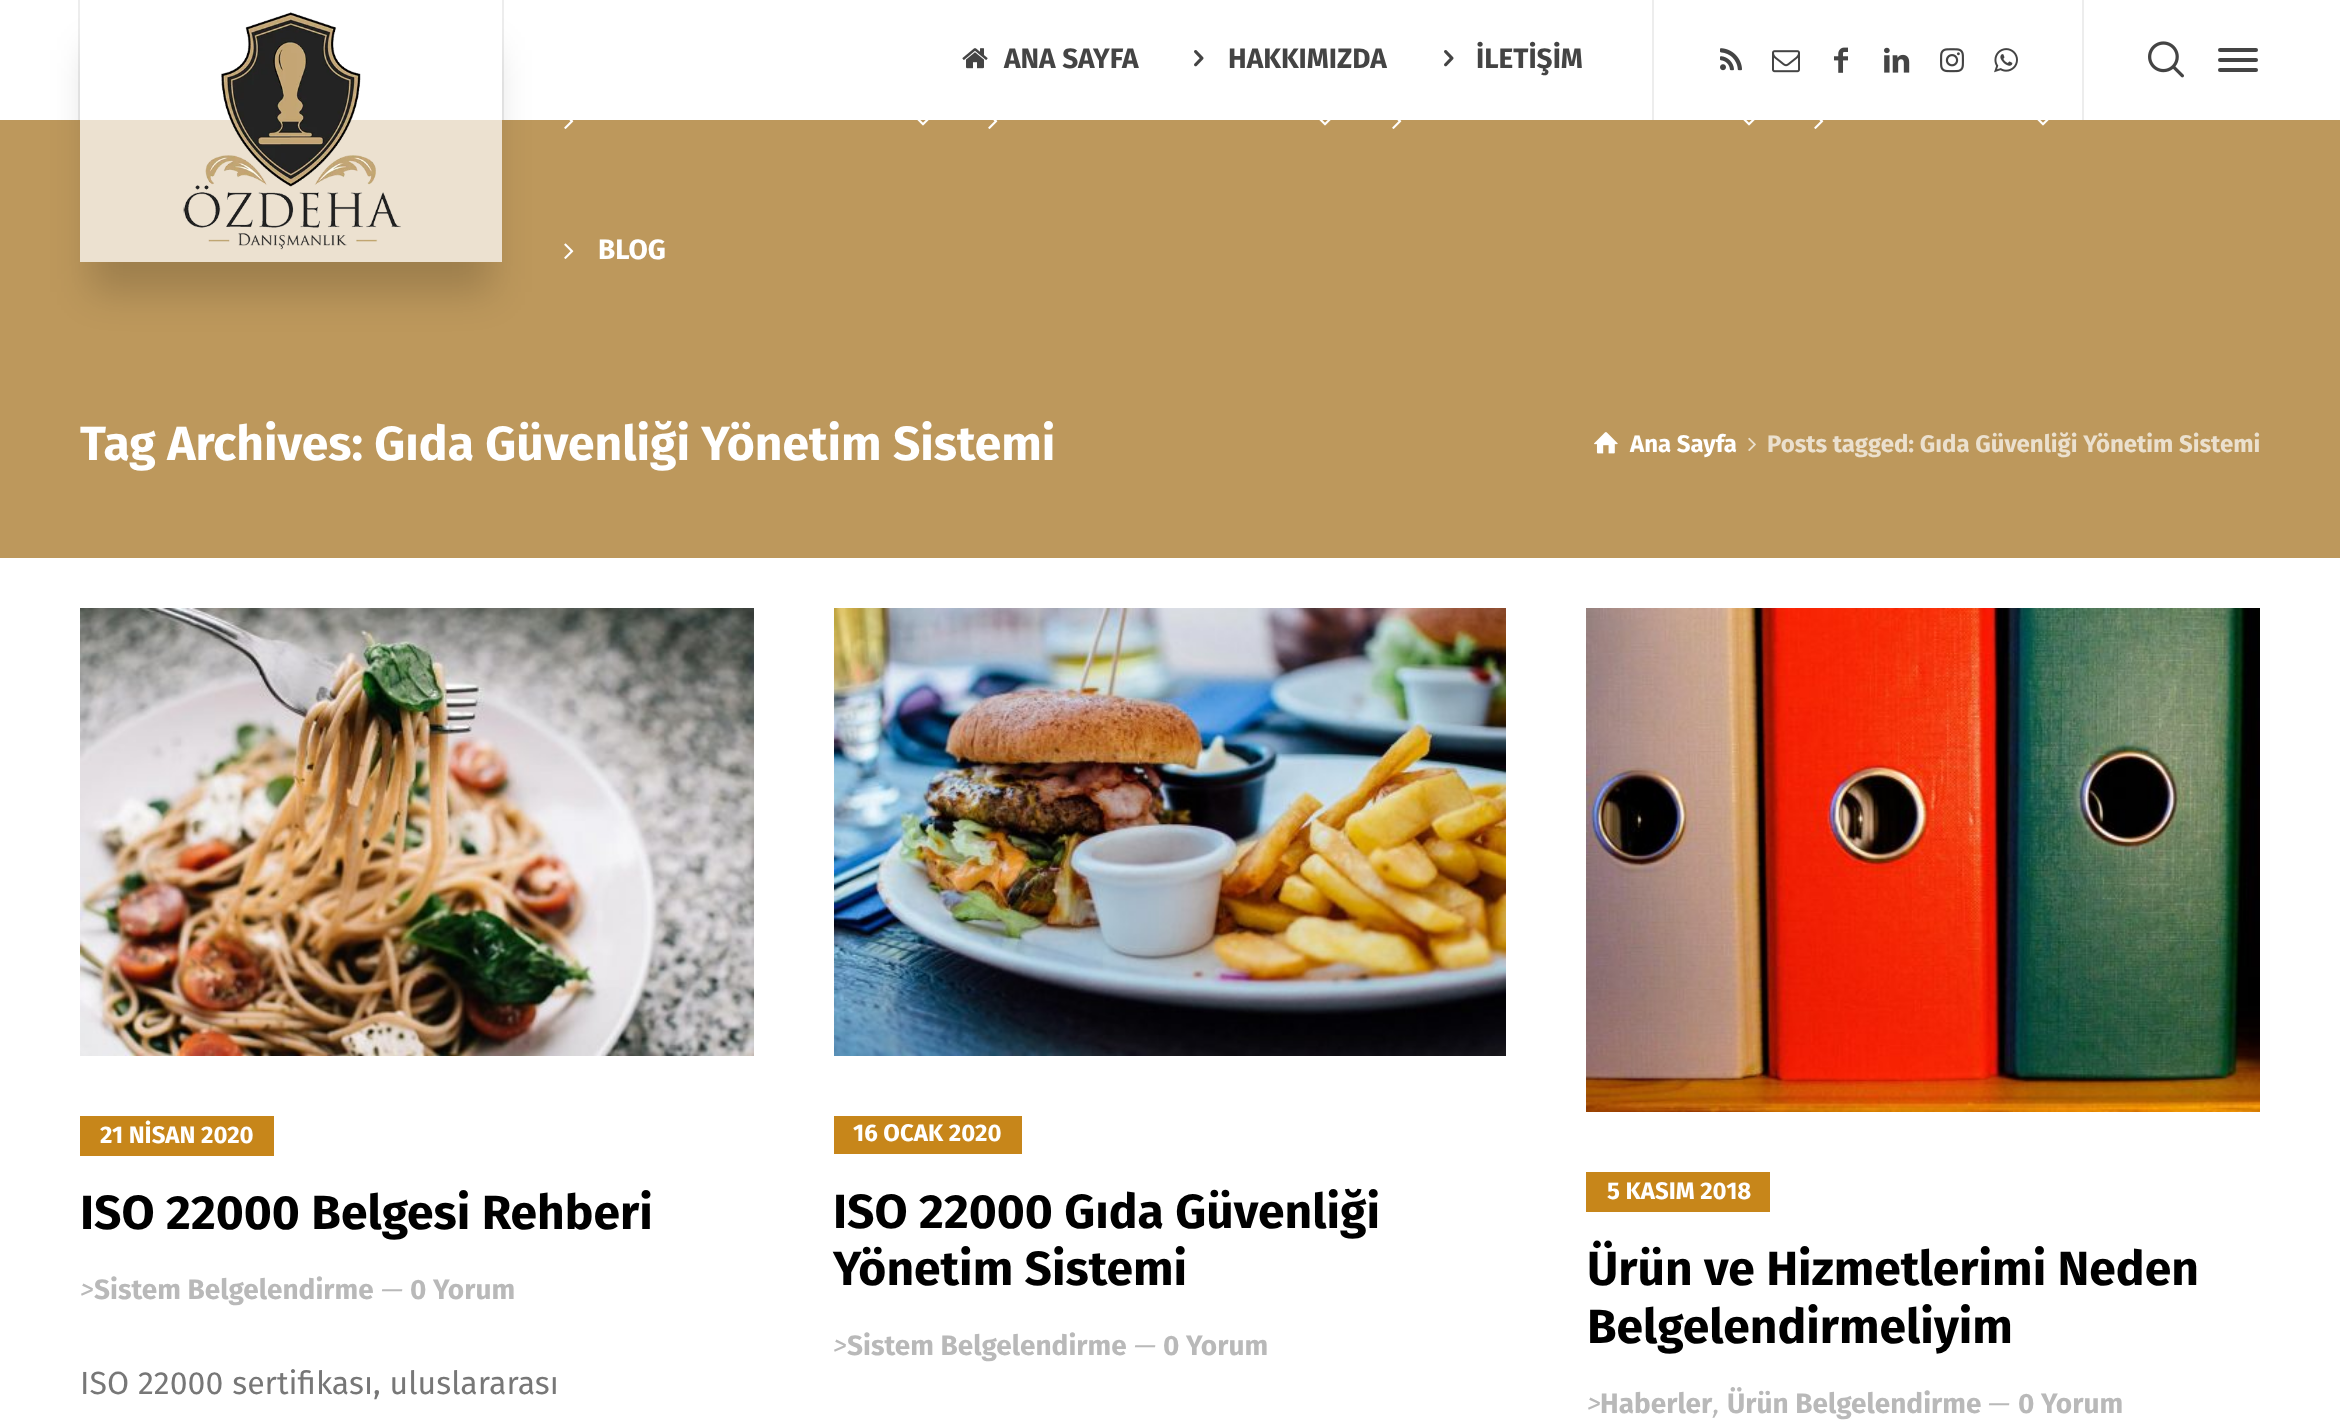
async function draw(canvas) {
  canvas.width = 2340
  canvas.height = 1425
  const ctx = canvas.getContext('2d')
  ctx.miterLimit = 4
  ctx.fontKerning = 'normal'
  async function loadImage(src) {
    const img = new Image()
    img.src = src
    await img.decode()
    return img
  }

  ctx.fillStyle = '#fff'
  ctx.fillRect(0, 0, 2340, 1425)
  ctx.fillStyle = '#bd985c'
  ctx.fillRect(0, 120, 2340, 438)
  ctx.fillStyle = '#ece1d0'
  ctx.fillRect(80, 120, 422, 142)
  ctx.save()
  ctx.beginPath()
  ctx.moveTo(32, 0)
  ctx.lineTo(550, 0)
  ctx.lineTo(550, 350)
  ctx.lineTo(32, 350)
  ctx.closePath()
  ctx.moveTo(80, 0)
  ctx.lineTo(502, 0)
  ctx.lineTo(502, 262)
  ctx.lineTo(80, 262)
  ctx.closePath()
  ctx.clip('evenodd')
  ctx.fillStyle = '#0000002b'
  ctx.filter = 'blur(19px)'
  ctx.beginPath()
  ctx.rect(90, 50, 402, 242)
  ctx.fill()
  ctx.filter = 'none'
  ctx.restore()
  ctx.fillStyle = '#00000012'
  ctx.fillRect(78, 0, 2, 120)
  ctx.drawImage(await loadImage('image0.png'), 183, 12, 218, 238)
  ctx.fillRect(502, 0, 2, 120)
  ctx.fillStyle = '#ededed'
  ctx.fillRect(1652, 0, 2, 120)
  ctx.drawImage(await loadImage('image1.png'), 962, 48, 26, 21)
  ctx.font = 'bold 28px Fira Sans'
  ctx.fillStyle = '#444'
  ctx.fillText('ANA SAYFA', 1004, 68)
  ctx.drawImage(await loadImage('image2.png'), 1194, 50, 10, 17)
  ctx.fillText('HAKKIMIZDA', 1228, 68)
  ctx.drawImage(await loadImage('image2.png'), 1444, 50, 10, 17)
  ctx.fillText('İLETİŞİM', 1476, 68)
  ctx.fillStyle = '#ededed'
  ctx.fillRect(2082, 0, 2, 120)
  ctx.drawImage(await loadImage('image3.png'), 1720, 48, 22, 23)
  ctx.drawImage(await loadImage('image4.png'), 1772, 50, 28, 23)
  ctx.drawImage(await loadImage('image5.png'), 1834, 47, 14, 26)
  ctx.drawImage(await loadImage('image6.png'), 1884, 47, 26, 26)
  ctx.drawImage(await loadImage('image7.png'), 1940, 48, 24, 25)
  ctx.drawImage(await loadImage('image8.png'), 1994, 48, 24, 25)
  ctx.drawImage(await loadImage('image9.png'), 2148, 41, 36, 37)
  ctx.fillStyle = '#444'
  ctx.beginPath()
  ctx.roundRect(2218, 48, 40, 4, 2)
  ctx.fill()
  ctx.beginPath()
  ctx.roundRect(2218, 58, 40, 4, 2)
  ctx.fill()
  ctx.beginPath()
  ctx.roundRect(2218, 68, 40, 4, 2)
  ctx.fill()
  ctx.drawImage(await loadImage('image10.png'), 564, 120, 10, 9)
  ctx.drawImage(await loadImage('image11.png'), 917, 120, 12, 6)
  ctx.drawImage(await loadImage('image10.png'), 988, 120, 10, 9)
  ctx.drawImage(await loadImage('image11.png'), 1319, 120, 12, 6)
  ctx.drawImage(await loadImage('image10.png'), 1392, 120, 10, 9)
  ctx.drawImage(await loadImage('image11.png'), 1743, 120, 12, 6)
  ctx.drawImage(await loadImage('image10.png'), 1814, 120, 10, 9)
  ctx.drawImage(await loadImage('image11.png'), 2037, 120, 12, 6)
  ctx.drawImage(await loadImage('image12.png'), 564, 243, 10, 16)
  ctx.fillStyle = '#fff'
  ctx.fillText('BLOG', 598, 259)
  ctx.font = 'bold 48px Fira Sans'
  ctx.fillText('Tag Archives: Gıda Güvenliği Yönetim Sistemi', 80, 460)
  ctx.drawImage(await loadImage('image13.png'), 1594, 432, 24, 22)
  ctx.font = 'bold 24px Fira Sans'
  ctx.fillText('Ana Sayfa', 1630, 452)
  ctx.drawImage(await loadImage('image14.png'), 1748, 437, 8, 15)
  ctx.fillStyle = '#ebe0ce'
  ctx.fillText('Posts tagged: Gıda Güvenliği Yönetim Sistemi', 1767, 452)
  ctx.drawImage(await loadImage('image15.png'), 80, 608, 674, 448)
  ctx.fillStyle = '#c7861a'
  ctx.fillRect(80, 1116, 194, 40)
  ctx.fillStyle = '#fff'
  ctx.fillText('21 NİSAN 2020', 100, 1143)
  ctx.font = 'bold 48px Fira Sans'
  ctx.fillStyle = '#000'
  ctx.fillText('ISO 22000 Belgesi Rehberi', 80, 1229)
  ctx.font = 'italic 28px Fira Sans'
  ctx.fillStyle = '#b9b9b9'
  ctx.fillText('>', 80, 1299)
  ctx.font = 'bold 28px Fira Sans'
  ctx.fillText('Sistem Belgelendirme', 94, 1299)
  ctx.font = 'italic 28px Fira Sans'
  ctx.fillText('—', 381, 1299)
  ctx.font = 'bold 28px Fira Sans'
  ctx.fillText('0 Yorum', 410, 1299)
  ctx.wordSpacing = '0.5px'
  ctx.font = '32px Fira Sans'
  ctx.fillStyle = '#777'
  ctx.fillText('ISO 22000 sertifikası, uluslararası', 80, 1394)
  ctx.drawImage(await loadImage('image16.png'), 834, 608, 672, 448)
  ctx.fillStyle = '#c7861a'
  ctx.fillRect(834, 1116, 188, 38)
  ctx.wordSpacing = '0px'
  ctx.font = 'bold 24px Fira Sans'
  ctx.fillStyle = '#fff'
  ctx.fillText('16 OCAK 2020', 853, 1141)
  ctx.font = 'bold 48px Fira Sans'
  ctx.fillStyle = '#000'
  ctx.fillText('ISO 22000 Gıda Güvenliği', 833, 1228)
  ctx.fillText('Yönetim Sistemi', 833, 1285)
  ctx.font = 'italic 28px Fira Sans'
  ctx.fillStyle = '#b9b9b9'
  ctx.fillText('>', 833, 1355)
  ctx.font = 'bold 28px Fira Sans'
  ctx.fillText('Sistem Belgelendirme', 847, 1355)
  ctx.font = 'italic 28px Fira Sans'
  ctx.fillText('—', 1134, 1355)
  ctx.font = 'bold 28px Fira Sans'
  ctx.fillText('0 Yorum', 1163, 1355)
  ctx.drawImage(await loadImage('image17.png'), 1586, 608, 674, 504)
  ctx.fillStyle = '#c7861a'
  ctx.fillRect(1586, 1172, 184, 40)
  ctx.font = 'bold 24px Fira Sans'
  ctx.fillStyle = '#fff'
  ctx.fillText('5 KASIM 2018', 1607, 1199)
  ctx.font = 'bold 48px Fira Sans'
  ctx.fillStyle = '#000'
  ctx.fillText('Ürün ve Hizmetlerimi Neden', 1587, 1285)
  ctx.fillText('Belgelendirmeliyim', 1587, 1343)
  ctx.font = 'italic 28px Fira Sans'
  ctx.fillStyle = '#b9b9b9'
  ctx.fillText('>', 1587, 1413)
  ctx.font = 'bold 28px Fira Sans'
  ctx.fillText('Haberler', 1600, 1413)
  ctx.fillText('Ürün Belgelendirme', 1727, 1413)
  ctx.font = 'italic 28px Fira Sans'
  ctx.fillText(',', 1713, 1413)
  ctx.fillText('—', 1988, 1413)
  ctx.font = 'bold 28px Fira Sans'
  ctx.fillText('0 Yorum', 2018, 1413)
}

draw(document.querySelector('canvas'))
